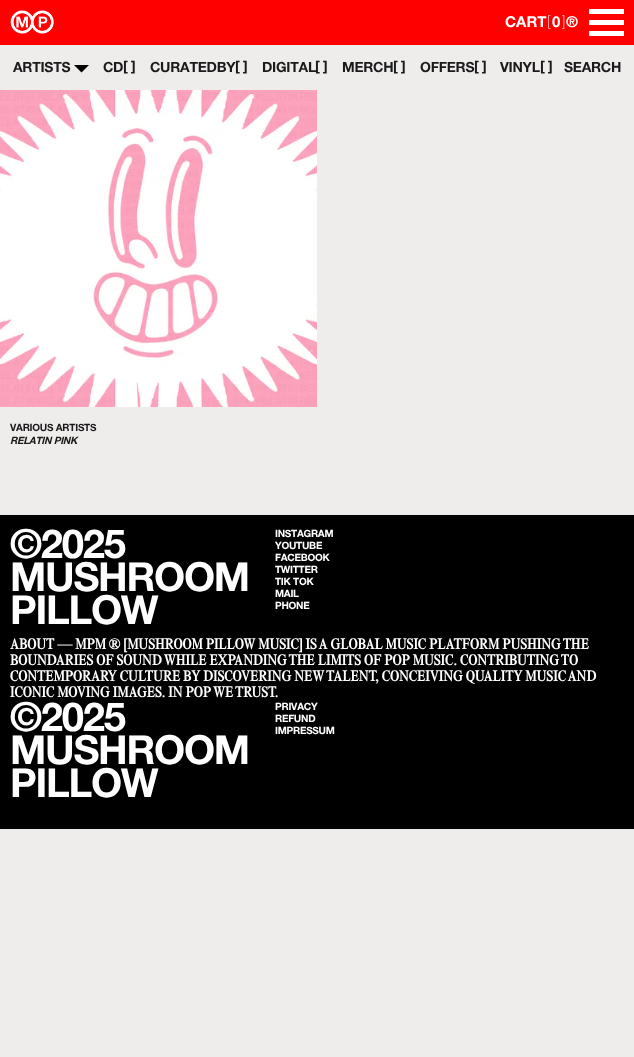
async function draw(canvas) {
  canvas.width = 634
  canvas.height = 1057
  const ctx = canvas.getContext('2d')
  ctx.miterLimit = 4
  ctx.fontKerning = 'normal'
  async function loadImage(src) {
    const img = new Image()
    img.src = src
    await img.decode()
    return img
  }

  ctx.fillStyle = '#efecec'
  ctx.fillRect(0, 0, 634, 1057)
  ctx.fillStyle = '#f00'
  ctx.fillRect(0, 0, 634, 45)
  ctx.drawImage(await loadImage('image0.png'), 10, 10, 44, 24)
  ctx.font = 'bold 15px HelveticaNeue'
  ctx.fillStyle = '#fff'
  ctx.fillText('CART', 505, 27)
  ctx.font = '100 15px Helvetica Neue'
  ctx.fillText('[', 547, 26)
  ctx.font = 'bold 15px HelveticaNeue'
  ctx.fillText('0', 552, 27)
  ctx.font = '100 15px Helvetica Neue'
  ctx.fillText(']', 562, 26)
  ctx.font = 'bold 15px HelveticaNeue'
  ctx.fillText('®', 566, 27)
  ctx.fillRect(589, 9, 35, 5)
  ctx.fillRect(589, 20, 35, 5)
  ctx.fillRect(589, 31, 35, 5)
  ctx.letterSpacing = '-0.25px'
  ctx.font = 'bold 14px HelveticaNeue'
  ctx.fillStyle = '#1c1b1b'
  ctx.fillText('ARTISTS', 13, 72)
  ctx.fillStyle = '#000'
  ctx.beginPath()
  ctx.moveTo(74, 65)
  ctx.lineTo(81.5, 72.5)
  ctx.lineTo(89, 65)
  ctx.closePath()
  ctx.fill()
  ctx.fillStyle = '#1c1b1b'
  ctx.fillText('CD', 103, 72)
  ctx.fillText('[ ]', 123, 71)
  ctx.fillText('CURATEDBY', 150, 72)
  ctx.fillText('[ ]', 235, 71)
  ctx.fillText('DIGITAL', 262, 72)
  ctx.fillText('[ ]', 315, 71)
  ctx.fillText('MERCH', 342, 72)
  ctx.fillText('[ ]', 393, 71)
  ctx.fillText('OFFERS', 420, 72)
  ctx.fillText('[ ]', 474, 71)
  ctx.fillText('VINYL', 500, 72)
  ctx.fillText('[ ]', 540, 71)
  ctx.fillText('SEARCH', 564, 72)
  ctx.drawImage(await loadImage('image1.png'), 0, 90, 317, 317)
  ctx.font = 'bold 10px HelveticaNeue'
  ctx.fillText('VARIOUS ARTISTS', 10, 431)
  ctx.font = 'italic bold 10px HelveticaNeue'
  ctx.fillText('RELATIN PINK', 10, 444)
  ctx.fillStyle = '#000'
  ctx.fillRect(0, 515, 634, 314)
  ctx.letterSpacing = '-1.25px'
  ctx.font = 'bold 40px HelveticaNeue'
  ctx.fillStyle = '#fff'
  ctx.fillText('©2025', 10, 558)
  ctx.fillText('MUSHROOM', 10, 591)
  ctx.fillText('PILLOW', 10, 624)
  ctx.letterSpacing = '-0.25px'
  ctx.font = 'bold 10px HelveticaNeue'
  ctx.fillText('INSTAGRAM', 275, 537)
  ctx.fillText('YOUTUBE', 275, 549)
  ctx.fillText('FACEBOOK', 275, 561)
  ctx.fillText('TWITTER', 275, 573)
  ctx.fillText('TIK TOK', 275, 585)
  ctx.fillText('MAIL', 275, 597)
  ctx.fillText('PHONE', 275, 609)
  ctx.letterSpacing = '0.1px'
  ctx.font = 'bold 15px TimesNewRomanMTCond'
  ctx.fillText('ABOUT — MPM ® [MUSHROOM PILLOW MUSIC] IS A GLOBAL MUSIC PLATFORM PUSHING THE', 10, 649)
  ctx.fillText('BOUNDARIES OF SOUND WHILE EXPANDING THE LIMITS OF POP MUSIC. CONTRIBUTING TO', 10, 665)
  ctx.fillText('CONTEMPORARY CULTURE BY DISCOVERING NEW TALENT, CONCEIVING QUALITY MUSIC AND', 10, 681)
  ctx.fillText('ICONIC MOVING IMAGES. IN POP WE TRUST.', 10, 697)
  ctx.letterSpacing = '-1.25px'
  ctx.font = 'bold 40px HelveticaNeue'
  ctx.fillText('©2025', 10, 731)
  ctx.fillText('MUSHROOM', 10, 764)
  ctx.fillText('PILLOW', 10, 797)
  ctx.letterSpacing = '-0.25px'
  ctx.font = 'bold 10px HelveticaNeue'
  ctx.fillText('PRIVACY', 275, 710)
  ctx.fillText('REFUND', 275, 722)
  ctx.fillText('IMPRESSUM', 275, 734)
}

draw(document.querySelector('canvas'))
